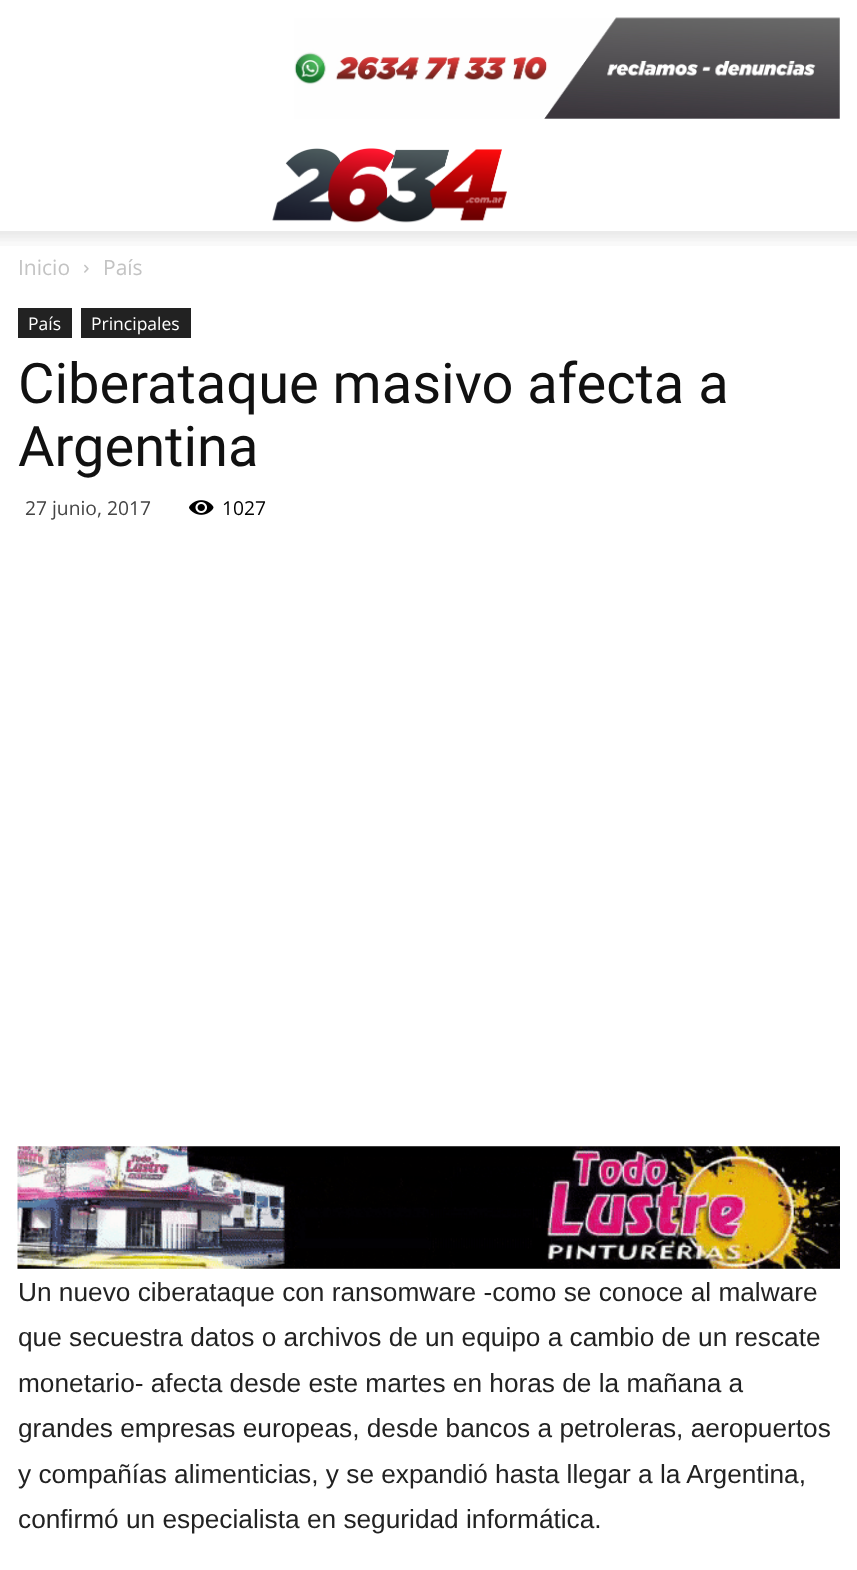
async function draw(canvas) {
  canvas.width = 857
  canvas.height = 1570
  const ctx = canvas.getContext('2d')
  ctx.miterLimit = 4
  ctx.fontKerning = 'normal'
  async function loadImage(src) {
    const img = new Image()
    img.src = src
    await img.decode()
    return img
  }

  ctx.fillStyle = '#fff'
  ctx.fillRect(0, 0, 857, 1570)
  ctx.drawImage(await loadImage('image0.png'), 294, 17, 546, 102)
  ctx.drawImage(await loadImage('image1.png'), 272, 148, 235, 75)
  ctx.drawImage(await loadImage('image2.png'), 0, 231, 857, 15)
  ctx.font = '21px Open Sans'
  ctx.fillStyle = '#c3c3c3'
  ctx.fillText('Inicio', 18, 275)
  ctx.drawImage(await loadImage('image3.png'), 84, 264, 5, 9)
  ctx.fillText('País', 103, 275)
  ctx.fillStyle = '#222'
  ctx.fillRect(18, 308, 54, 30)
  ctx.font = '17.5px Open Sans'
  ctx.fillStyle = '#fff'
  ctx.fillText('País', 28, 330)
  ctx.fillStyle = '#222'
  ctx.fillRect(81, 308, 110, 30)
  ctx.fillStyle = '#fff'
  ctx.fillText('Principales', 91, 330)
  ctx.font = '56px Roboto'
  ctx.fillStyle = '#111'
  ctx.fillText('Ciberataque masivo afecta a', 18, 403)
  ctx.fillText('Argentina', 18, 466)
  ctx.font = '19.25px Open Sans'
  ctx.fillStyle = '#444'
  ctx.fillText('27 junio, 2017', 25, 515)
  ctx.drawImage(await loadImage('image4.png'), 189, 500, 25, 15)
  ctx.fillStyle = '#000'
  ctx.fillText('1027', 222, 515)
  ctx.drawImage(await loadImage('image5.png'), 17, 1146, 823, 123)
  ctx.font = '26.25px Liberation Sans'
  ctx.fillStyle = '#222'
  ctx.fillText('Un nuevo ciberataque con ransomware -como se conoce al malware', 18, 1301)
  ctx.fillText('que secuestra datos o archivos de un equipo a cambio de un rescate', 18, 1346)
  ctx.fillText('monetario- afecta desde este martes en horas de la mañana a', 18, 1392)
  ctx.fillText('grandes empresas europeas, desde bancos a petroleras, aeropuertos', 18, 1437)
  ctx.fillText('y compañías alimenticias, y se expandió hasta llegar a la Argentina,', 18, 1483)
  ctx.fillText('confirmó un especialista en seguridad informática.', 18, 1528)
}

draw(document.querySelector('canvas'))
